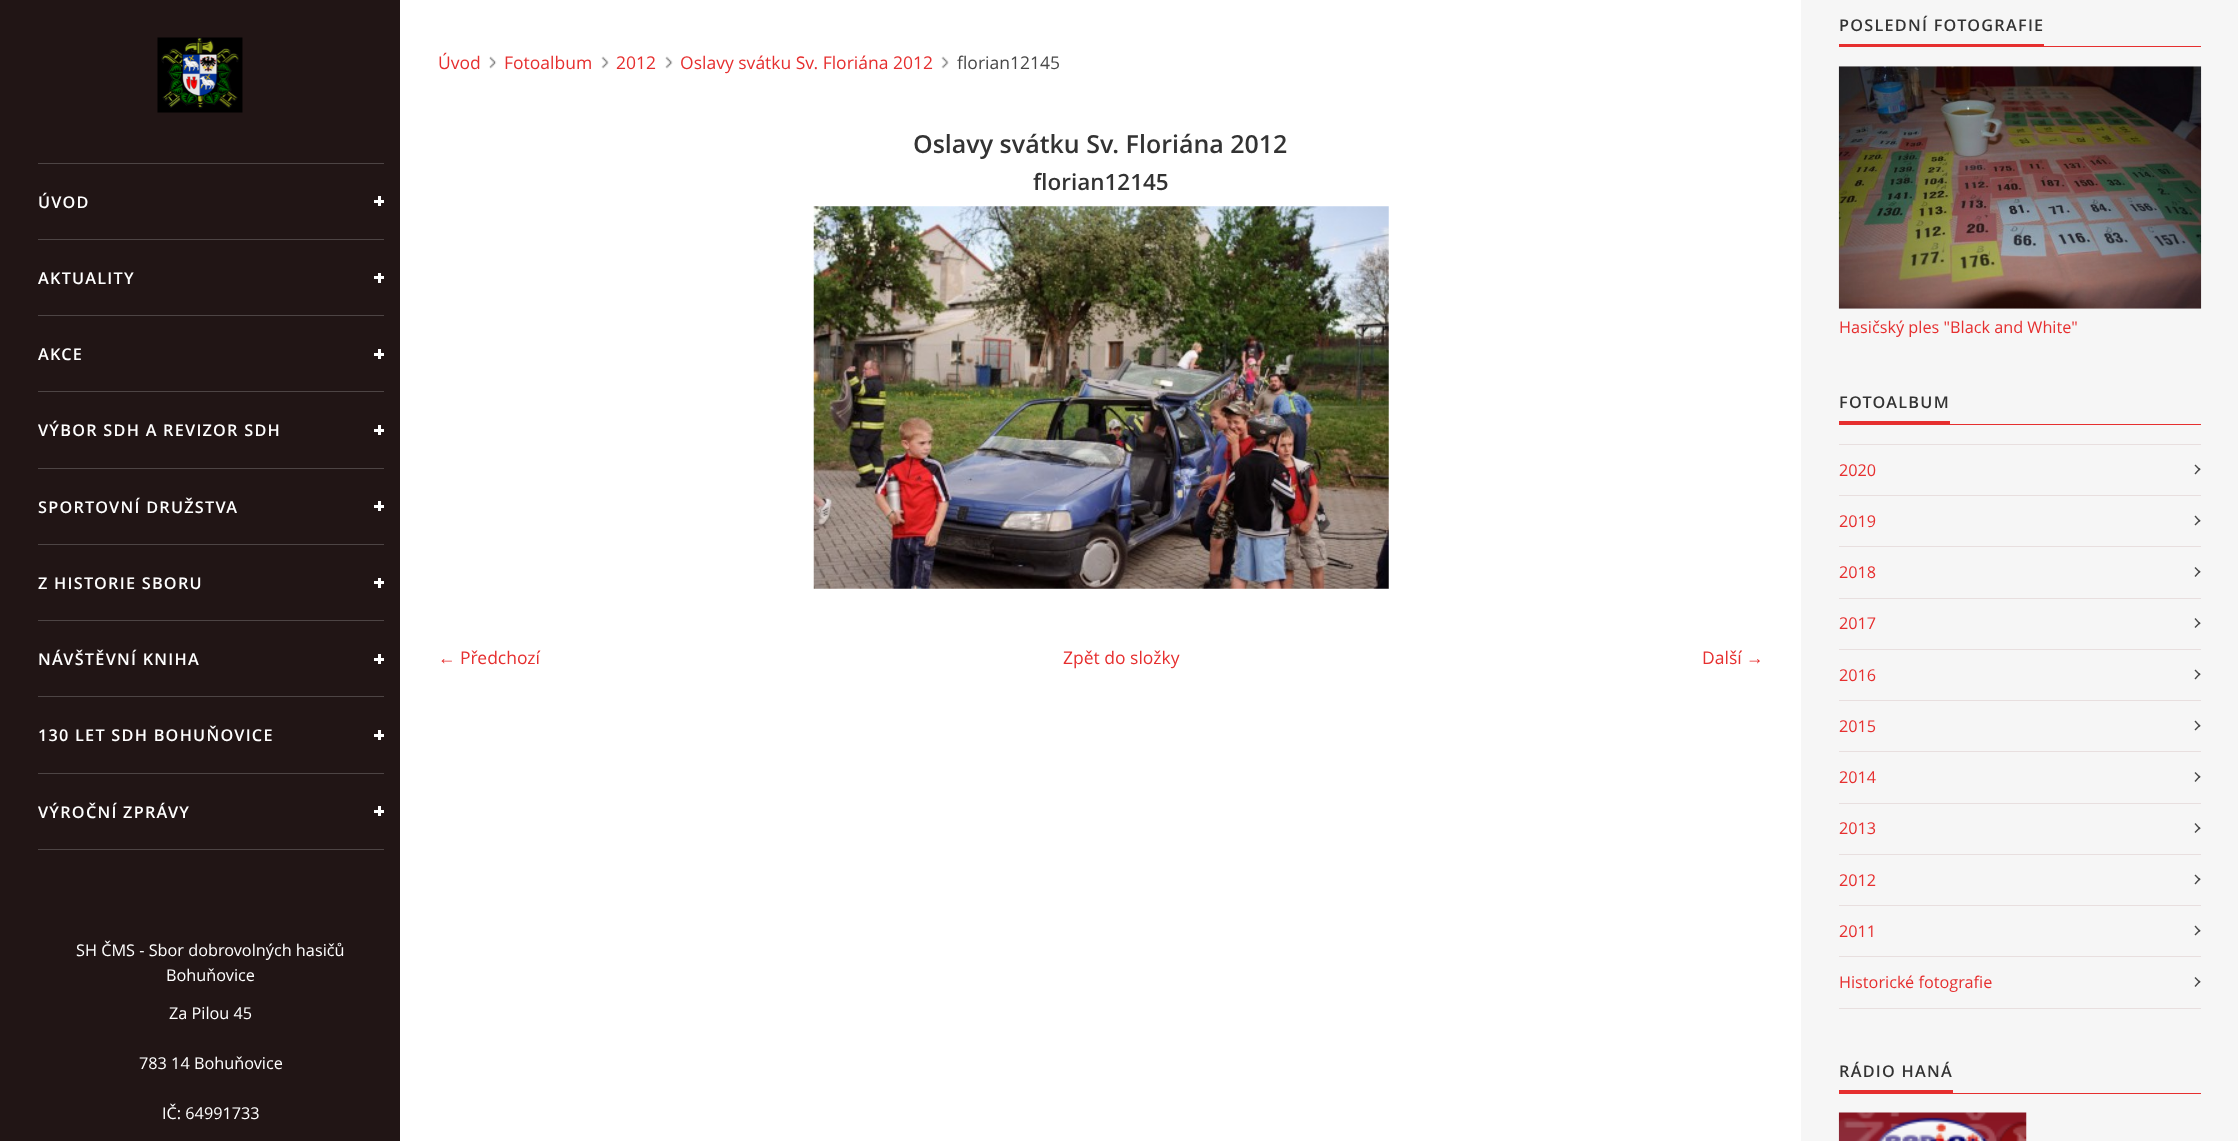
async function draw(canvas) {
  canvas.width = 2238
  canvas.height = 1141
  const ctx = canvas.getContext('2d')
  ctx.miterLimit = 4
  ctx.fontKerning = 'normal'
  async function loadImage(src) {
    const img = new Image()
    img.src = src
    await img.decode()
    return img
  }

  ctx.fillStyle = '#fff'
  ctx.fillRect(0, 0, 2238, 1141)
  ctx.fillStyle = '#211515'
  ctx.fillRect(0, 0, 400, 1141)
  ctx.drawImage(await loadImage('image0.png'), 157, 37, 86, 76)
  ctx.fillStyle = '#4d4444'
  ctx.fillRect(38, 163, 346, 1)
  ctx.letterSpacing = '1.25px'
  ctx.font = '600 16.25px Open Sans'
  ctx.fillStyle = '#fff'
  ctx.fillText('ÚVOD', 38, 208)
  ctx.fillRect(374, 200, 10, 3)
  ctx.fillRect(378, 196, 3, 10)
  ctx.fillStyle = '#4d4444'
  ctx.fillRect(38, 239, 346, 1)
  ctx.fillStyle = '#fff'
  ctx.fillText('AKTUALITY', 38, 284)
  ctx.fillRect(374, 276, 10, 3)
  ctx.fillRect(378, 273, 3, 10)
  ctx.fillStyle = '#4d4444'
  ctx.fillRect(38, 315, 346, 1)
  ctx.fillStyle = '#fff'
  ctx.fillText('AKCE', 38, 360)
  ctx.fillRect(374, 353, 10, 3)
  ctx.fillRect(378, 349, 3, 10)
  ctx.fillStyle = '#4d4444'
  ctx.fillRect(38, 391, 346, 1)
  ctx.fillStyle = '#fff'
  ctx.fillText('VÝBOR SDH A REVIZOR SDH', 38, 436)
  ctx.fillRect(374, 429, 10, 3)
  ctx.fillRect(378, 425, 3, 10)
  ctx.fillStyle = '#4d4444'
  ctx.fillRect(38, 468, 346, 1)
  ctx.fillStyle = '#fff'
  ctx.fillText('SPORTOVNÍ DRUŽSTVA', 38, 513)
  ctx.fillRect(374, 505, 10, 3)
  ctx.fillRect(378, 501, 3, 10)
  ctx.fillStyle = '#4d4444'
  ctx.fillRect(38, 544, 346, 1)
  ctx.fillStyle = '#fff'
  ctx.fillText('Z HISTORIE SBORU', 38, 589)
  ctx.fillRect(374, 581, 10, 3)
  ctx.fillRect(378, 578, 3, 10)
  ctx.fillStyle = '#4d4444'
  ctx.fillRect(38, 620, 346, 1)
  ctx.fillStyle = '#fff'
  ctx.fillText('NÁVŠTĚVNÍ KNIHA', 38, 665)
  ctx.fillRect(374, 658, 10, 3)
  ctx.fillRect(378, 654, 3, 10)
  ctx.fillStyle = '#4d4444'
  ctx.fillRect(38, 696, 346, 1)
  ctx.fillStyle = '#fff'
  ctx.fillText('130 LET SDH BOHUŇOVICE', 38, 741)
  ctx.fillRect(374, 734, 10, 3)
  ctx.fillRect(378, 730, 3, 10)
  ctx.fillStyle = '#4d4444'
  ctx.fillRect(38, 773, 346, 1)
  ctx.fillRect(38, 849, 346, 1)
  ctx.fillStyle = '#fff'
  ctx.fillText('VÝROČNÍ ZPRÁVY', 38, 818)
  ctx.fillRect(374, 810, 10, 3)
  ctx.fillRect(378, 806, 3, 10)
  ctx.letterSpacing = '0px'
  ctx.font = '16.25px Open Sans'
  ctx.fillText('SH ČMS - Sbor dobrovolných hasičů', 76, 956)
  ctx.fillText('Bohuňovice', 166, 981)
  ctx.fillText('Za Pilou 45', 169, 1019)
  ctx.fillText('783 14 Bohuňovice', 139, 1069)
  ctx.fillText('IČ: 64991733', 162, 1119)
  ctx.drawImage(await loadImage('image1.png'), 489, 56, 8, 13)
  ctx.font = '17.5px Open Sans'
  ctx.fillStyle = '#e62f2f'
  ctx.fillText('Úvod', 438, 69)
  ctx.drawImage(await loadImage('image2.png'), 601, 56, 8, 13)
  ctx.fillText('Fotoalbum', 504, 69)
  ctx.drawImage(await loadImage('image3.png'), 665, 56, 8, 13)
  ctx.fillText('2012', 616, 69)
  ctx.drawImage(await loadImage('image2.png'), 941, 56, 8, 13)
  ctx.fillText('Oslavy svátku Sv. Floriána 2012', 680, 69)
  ctx.fillStyle = '#484848'
  ctx.fillText('florian12145', 957, 69)
  ctx.font = '600 25px Open Sans'
  ctx.fillStyle = '#333'
  ctx.fillText('Oslavy svátku Sv. Floriána 2012', 913, 153)
  ctx.font = '600 22.5px Open Sans'
  ctx.fillText('florian12145', 1033, 190)
  ctx.drawImage(await loadImage('image4.png'), 813, 206, 576, 383)
  ctx.font = '17.5px Liberation Serif'
  ctx.fillStyle = '#e62f2f'
  ctx.fillText('←', 438, 664)
  ctx.font = '17.5px Open Sans'
  ctx.fillText('Předchozí', 460, 664)
  ctx.fillText('Zpět do složky', 1063, 664)
  ctx.fillText('Další', 1702, 664)
  ctx.font = '17.5px Liberation Serif'
  ctx.fillText('→', 1746, 664)
  ctx.fillStyle = '#f6f6f6'
  ctx.fillRect(1801, 0, 437, 1141)
  ctx.letterSpacing = '1.25px'
  ctx.font = '600 16.25px Open Sans'
  ctx.fillStyle = '#333'
  ctx.fillText('POSLEDNÍ FOTOGRAFIE', 1839, 31)
  ctx.fillStyle = '#e62f2f'
  ctx.fillRect(1839, 44, 205, 2)
  ctx.fillRect(1839, 46, 362, 1)
  ctx.drawImage(await loadImage('image5.png'), 1838, 66, 364, 243)
  ctx.letterSpacing = '0px'
  ctx.font = '16.25px Open Sans'
  ctx.fillText('Hasičský ples "Black and White"', 1839, 333)
  ctx.letterSpacing = '1.25px'
  ctx.font = '600 16.25px Open Sans'
  ctx.fillStyle = '#333'
  ctx.fillText('FOTOALBUM', 1839, 408)
  ctx.fillStyle = '#e62f2f'
  ctx.fillRect(1839, 421, 111, 3)
  ctx.fillRect(1839, 424, 362, 1)
  ctx.fillStyle = '#e8dfdf'
  ctx.fillRect(1839, 444, 362, 1)
  ctx.fillRect(1839, 495, 362, 1)
  ctx.letterSpacing = '0px'
  ctx.font = '16.25px Open Sans'
  ctx.fillStyle = '#e62f2f'
  ctx.fillText('2020', 1839, 476)
  ctx.fillStyle = '#484848'
  ctx.beginPath()
  ctx.moveTo(2195.5, 464.5)
  ctx.lineTo(2200.5, 469.5)
  ctx.lineTo(2199.5, 470.5)
  ctx.lineTo(2194.5, 465.5)
  ctx.closePath()
  ctx.fill()
  ctx.beginPath()
  ctx.moveTo(2194.5, 473.5)
  ctx.lineTo(2199.5, 468)
  ctx.lineTo(2200.5, 469)
  ctx.lineTo(2195.5, 474.5)
  ctx.closePath()
  ctx.fill()
  ctx.fillStyle = '#e8dfdf'
  ctx.fillRect(1839, 546, 362, 1)
  ctx.fillStyle = '#e62f2f'
  ctx.fillText('2019', 1839, 527)
  ctx.fillStyle = '#484848'
  ctx.beginPath()
  ctx.moveTo(2195.5, 515.5)
  ctx.lineTo(2200.5, 521)
  ctx.lineTo(2199.5, 522)
  ctx.lineTo(2194.5, 516.5)
  ctx.closePath()
  ctx.fill()
  ctx.beginPath()
  ctx.moveTo(2194.5, 524.5)
  ctx.lineTo(2199.5, 519.5)
  ctx.lineTo(2200.5, 520.5)
  ctx.lineTo(2195.5, 525.5)
  ctx.closePath()
  ctx.fill()
  ctx.fillStyle = '#e8dfdf'
  ctx.fillRect(1839, 598, 362, 1)
  ctx.fillStyle = '#e62f2f'
  ctx.fillText('2018', 1839, 578)
  ctx.fillStyle = '#484848'
  ctx.beginPath()
  ctx.moveTo(2195.5, 567)
  ctx.lineTo(2200.5, 572)
  ctx.lineTo(2199.5, 573)
  ctx.lineTo(2194.5, 568)
  ctx.closePath()
  ctx.fill()
  ctx.beginPath()
  ctx.moveTo(2194.5, 576)
  ctx.lineTo(2199.5, 570.5)
  ctx.lineTo(2200.5, 571.5)
  ctx.lineTo(2195.5, 577)
  ctx.closePath()
  ctx.fill()
  ctx.fillStyle = '#e8dfdf'
  ctx.fillRect(1839, 649, 362, 1)
  ctx.fillStyle = '#e62f2f'
  ctx.fillText('2017', 1839, 629)
  ctx.fillStyle = '#484848'
  ctx.beginPath()
  ctx.moveTo(2195.5, 618)
  ctx.lineTo(2200.5, 623.5)
  ctx.lineTo(2199.5, 624.5)
  ctx.lineTo(2194.5, 619)
  ctx.closePath()
  ctx.fill()
  ctx.beginPath()
  ctx.moveTo(2194.5, 627)
  ctx.lineTo(2199.5, 622)
  ctx.lineTo(2200.5, 623)
  ctx.lineTo(2195.5, 628)
  ctx.closePath()
  ctx.fill()
  ctx.fillStyle = '#e8dfdf'
  ctx.fillRect(1839, 700, 362, 1)
  ctx.fillStyle = '#e62f2f'
  ctx.fillText('2016', 1839, 681)
  ctx.fillStyle = '#484848'
  ctx.beginPath()
  ctx.moveTo(2195.5, 669.5)
  ctx.lineTo(2200.5, 674.5)
  ctx.lineTo(2199.5, 675.5)
  ctx.lineTo(2194.5, 670.5)
  ctx.closePath()
  ctx.fill()
  ctx.beginPath()
  ctx.moveTo(2194.5, 678.5)
  ctx.lineTo(2199.5, 673)
  ctx.lineTo(2200.5, 674)
  ctx.lineTo(2195.5, 679.5)
  ctx.closePath()
  ctx.fill()
  ctx.fillStyle = '#e8dfdf'
  ctx.fillRect(1839, 751, 362, 1)
  ctx.fillStyle = '#e62f2f'
  ctx.fillText('2015', 1839, 732)
  ctx.fillStyle = '#484848'
  ctx.beginPath()
  ctx.moveTo(2195.5, 720.5)
  ctx.lineTo(2200.5, 726)
  ctx.lineTo(2199.5, 727)
  ctx.lineTo(2194.5, 721.5)
  ctx.closePath()
  ctx.fill()
  ctx.beginPath()
  ctx.moveTo(2194.5, 729.5)
  ctx.lineTo(2199.5, 724.5)
  ctx.lineTo(2200.5, 725.5)
  ctx.lineTo(2195.5, 730.5)
  ctx.closePath()
  ctx.fill()
  ctx.fillStyle = '#e8dfdf'
  ctx.fillRect(1839, 803, 362, 1)
  ctx.fillStyle = '#e62f2f'
  ctx.fillText('2014', 1839, 783)
  ctx.fillStyle = '#484848'
  ctx.beginPath()
  ctx.moveTo(2195.5, 772)
  ctx.lineTo(2200.5, 777)
  ctx.lineTo(2199.5, 778)
  ctx.lineTo(2194.5, 773)
  ctx.closePath()
  ctx.fill()
  ctx.beginPath()
  ctx.moveTo(2194.5, 781)
  ctx.lineTo(2199.5, 775.5)
  ctx.lineTo(2200.5, 776.5)
  ctx.lineTo(2195.5, 782)
  ctx.closePath()
  ctx.fill()
  ctx.fillStyle = '#e8dfdf'
  ctx.fillRect(1839, 854, 362, 1)
  ctx.fillStyle = '#e62f2f'
  ctx.fillText('2013', 1839, 834)
  ctx.fillStyle = '#484848'
  ctx.beginPath()
  ctx.moveTo(2195.5, 823)
  ctx.lineTo(2200.5, 828.5)
  ctx.lineTo(2199.5, 829.5)
  ctx.lineTo(2194.5, 824)
  ctx.closePath()
  ctx.fill()
  ctx.beginPath()
  ctx.moveTo(2194.5, 832)
  ctx.lineTo(2199.5, 827)
  ctx.lineTo(2200.5, 828)
  ctx.lineTo(2195.5, 833)
  ctx.closePath()
  ctx.fill()
  ctx.fillStyle = '#e8dfdf'
  ctx.fillRect(1839, 905, 362, 1)
  ctx.fillStyle = '#e62f2f'
  ctx.fillText('2012', 1839, 886)
  ctx.fillStyle = '#484848'
  ctx.beginPath()
  ctx.moveTo(2195.5, 874.5)
  ctx.lineTo(2200.5, 879.5)
  ctx.lineTo(2199.5, 880.5)
  ctx.lineTo(2194.5, 875.5)
  ctx.closePath()
  ctx.fill()
  ctx.beginPath()
  ctx.moveTo(2194.5, 883.5)
  ctx.lineTo(2199.5, 878)
  ctx.lineTo(2200.5, 879)
  ctx.lineTo(2195.5, 884.5)
  ctx.closePath()
  ctx.fill()
  ctx.fillStyle = '#e8dfdf'
  ctx.fillRect(1839, 956, 362, 1)
  ctx.fillStyle = '#e62f2f'
  ctx.fillText('2011', 1839, 937)
  ctx.fillStyle = '#484848'
  ctx.beginPath()
  ctx.moveTo(2195.5, 925.5)
  ctx.lineTo(2200.5, 931)
  ctx.lineTo(2199.5, 932)
  ctx.lineTo(2194.5, 926.5)
  ctx.closePath()
  ctx.fill()
  ctx.beginPath()
  ctx.moveTo(2194.5, 934.5)
  ctx.lineTo(2199.5, 929.5)
  ctx.lineTo(2200.5, 930.5)
  ctx.lineTo(2195.5, 935.5)
  ctx.closePath()
  ctx.fill()
  ctx.fillStyle = '#e8dfdf'
  ctx.fillRect(1839, 1008, 362, 1)
  ctx.fillStyle = '#e62f2f'
  ctx.fillText('Historické fotografie', 1839, 988)
  ctx.fillStyle = '#484848'
  ctx.beginPath()
  ctx.moveTo(2195.5, 977)
  ctx.lineTo(2200.5, 982)
  ctx.lineTo(2199.5, 983)
  ctx.lineTo(2194.5, 978)
  ctx.closePath()
  ctx.fill()
  ctx.beginPath()
  ctx.moveTo(2194.5, 986)
  ctx.lineTo(2199.5, 980.5)
  ctx.lineTo(2200.5, 981.5)
  ctx.lineTo(2195.5, 987)
  ctx.closePath()
  ctx.fill()
  ctx.letterSpacing = '1.25px'
  ctx.font = '600 16.25px Open Sans'
  ctx.fillStyle = '#333'
  ctx.fillText('RÁDIO HANÁ', 1839, 1077)
  ctx.fillStyle = '#e62f2f'
  ctx.fillRect(1839, 1090, 114, 3)
  ctx.fillRect(1839, 1093, 362, 1)
  ctx.drawImage(await loadImage('image6.png'), 1838, 1112, 189, 29)
}

draw(document.querySelector('canvas'))
